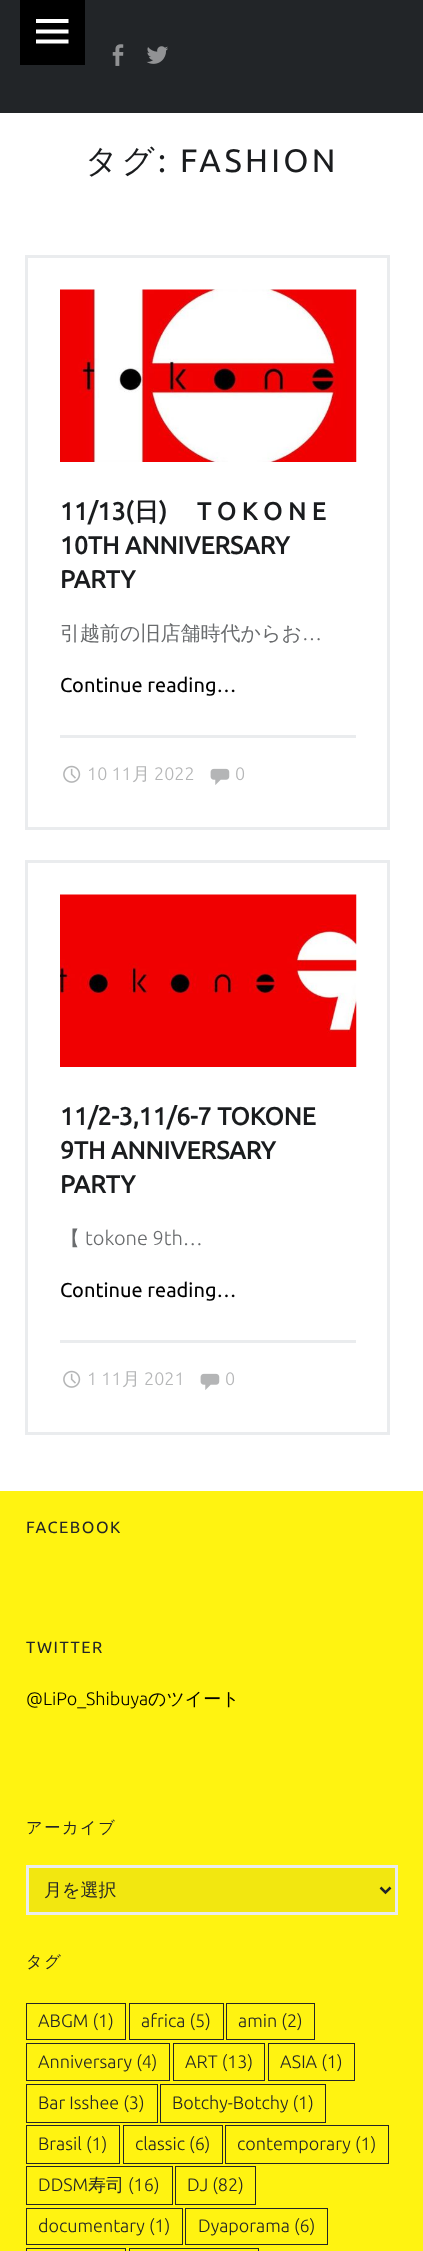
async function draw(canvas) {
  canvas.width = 423
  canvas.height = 2251
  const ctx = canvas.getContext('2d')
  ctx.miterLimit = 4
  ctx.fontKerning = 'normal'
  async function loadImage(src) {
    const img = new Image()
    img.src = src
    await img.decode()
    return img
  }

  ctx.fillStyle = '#fff'
  ctx.fillRect(0, 0, 423, 2251)
  ctx.fillStyle = '#222528'
  ctx.fillRect(0, 0, 423, 113)
  ctx.fillStyle = '#000'
  ctx.fillRect(20, 0, 65, 65)
  ctx.fillStyle = '#fff'
  ctx.beginPath()
  ctx.moveTo(36, 43.5)
  ctx.lineTo(36, 39.5)
  ctx.lineTo(68.5, 39.5)
  ctx.lineTo(68.5, 43.5)
  ctx.closePath()
  ctx.moveTo(36, 19)
  ctx.lineTo(68.5, 19)
  ctx.lineTo(68.5, 23)
  ctx.lineTo(36, 23)
  ctx.closePath()
  ctx.moveTo(36, 33.5)
  ctx.lineTo(36, 29.5)
  ctx.lineTo(68.5, 29.5)
  ctx.lineTo(68.5, 33.5)
  ctx.closePath()
  ctx.fill()
  ctx.drawImage(await loadImage('image0.png'), 112, 44, 12, 22)
  ctx.drawImage(await loadImage('image1.png'), 146, 46, 22, 18)
  ctx.letterSpacing = '3.25px'
  ctx.font = '500 32.5px WenQuanYi Zen Hei'
  ctx.fillStyle = '#1a1c1e'
  ctx.fillText('タグ', 85, 172)
  ctx.font = '32.5px Ubuntu'
  ctx.fillText(': FASHION', 158, 172)
  ctx.strokeStyle = '#eaecee'
  ctx.lineWidth = 3
  ctx.strokeRect(26.5, 256.5, 362, 572)
  ctx.drawImage(await loadImage('image2.png'), 60, 289, 297, 173)
  ctx.letterSpacing = '0px'
  ctx.font = 'bold 24.75px Ubuntu'
  ctx.fillText('11/13(', 60, 520)
  ctx.font = 'bold 24.75px WenQuanYi Zen Hei'
  ctx.fillText('日', 134, 520)
  ctx.font = 'bold 24.75px Ubuntu'
  ctx.fillText(')', 159, 520)
  ctx.fillText('T O K O N E', 197, 520)
  ctx.fillText('10TH ANNIVERSARY', 60, 554)
  ctx.fillText('PARTY', 60, 588)
  ctx.font = '500 20px WenQuanYi Zen Hei'
  ctx.fillStyle = '#6a6c6e'
  ctx.fillText('引越前の旧店舗時代からお', 60, 640)
  ctx.font = '300 20px Ubuntu'
  ctx.fillText('…', 302, 640)
  ctx.font = '20px Ubuntu'
  ctx.fillStyle = '#000'
  ctx.fillText('Continue reading…', 60, 692)
  ctx.fillStyle = '#eaecee'
  ctx.fillRect(60, 735, 296, 3)
  ctx.drawImage(await loadImage('image3.png'), 63, 765, 18, 18)
  ctx.font = '300 18px Ubuntu'
  ctx.fillStyle = '#b5b6b7'
  ctx.fillText('10 11', 87, 780)
  ctx.font = '500 18px WenQuanYi Zen Hei'
  ctx.fillText('月', 132, 780)
  ctx.font = '300 18px Ubuntu'
  ctx.fillText('2022', 154, 780)
  ctx.drawImage(await loadImage('image4.png'), 210, 768, 20, 17)
  ctx.fillText('0', 235, 780)
  ctx.strokeRect(26.5, 861.5, 362, 572)
  ctx.drawImage(await loadImage('image5.png'), 60, 894, 297, 173)
  ctx.font = 'bold 24.75px Ubuntu'
  ctx.fillStyle = '#1a1c1e'
  ctx.fillText('11/2-3,11/6-7 TOKONE', 60, 1125)
  ctx.fillText('9TH ANNIVERSARY', 60, 1159)
  ctx.fillText('PARTY', 60, 1193)
  ctx.font = '500 20px WenQuanYi Zen Hei'
  ctx.fillStyle = '#6a6c6e'
  ctx.fillText('【', 60, 1245)
  ctx.font = '300 20px Ubuntu'
  ctx.fillText('tokone 9th…', 85, 1245)
  ctx.font = '20px Ubuntu'
  ctx.fillStyle = '#000'
  ctx.fillText('Continue reading…', 60, 1297)
  ctx.fillStyle = '#eaecee'
  ctx.fillRect(60, 1340, 296, 3)
  ctx.drawImage(await loadImage('image3.png'), 63, 1370, 18, 18)
  ctx.font = '300 18px Ubuntu'
  ctx.fillStyle = '#b5b6b7'
  ctx.fillText('1 11', 87, 1385)
  ctx.font = '500 18px WenQuanYi Zen Hei'
  ctx.fillText('月', 122, 1385)
  ctx.font = '300 18px Ubuntu'
  ctx.fillText('2021', 144, 1385)
  ctx.drawImage(await loadImage('image4.png'), 200, 1373, 20, 17)
  ctx.fillText('0', 225, 1385)
  ctx.fillStyle = '#fff311'
  ctx.fillRect(0, 1491, 423, 760)
  ctx.letterSpacing = '1.5px'
  ctx.font = '16.25px Ubuntu'
  ctx.fillStyle = '#232528'
  ctx.fillText('FACEBOOK', 26, 1533)
  ctx.fillText('TWITTER', 26, 1653)
  ctx.letterSpacing = '0px'
  ctx.font = '300 18px Ubuntu'
  ctx.fillStyle = '#000'
  ctx.fillText('@LiPo_Shibuya', 26, 1705)
  ctx.font = '500 18px WenQuanYi Zen Hei'
  ctx.fillText('のツイート', 148, 1705)
  ctx.letterSpacing = '1.5px'
  ctx.font = '500 16.25px WenQuanYi Zen Hei'
  ctx.fillStyle = '#232528'
  ctx.fillText('アーカイブ', 26, 1833)
  ctx.fillStyle = '#f2e710'
  ctx.beginPath()
  ctx.rect(27.5, 1866.5, 369, 47)
  ctx.fill()
  ctx.stroke()
  ctx.beginPath()
  ctx.moveTo(380.5, 1887.5)
  ctx.lineTo(385.5, 1892.5)
  ctx.lineTo(390.5, 1887.5)
  ctx.strokeStyle = '#232528'
  ctx.lineWidth = 2.5
  ctx.stroke()
  ctx.letterSpacing = '0px'
  ctx.font = '500 18px WenQuanYi Zen Hei'
  ctx.fillStyle = '#232528'
  ctx.fillText('月を選択', 44, 1896)
  ctx.letterSpacing = '1.5px'
  ctx.font = '500 16.25px WenQuanYi Zen Hei'
  ctx.fillText('タグ', 26, 1967)
  ctx.lineWidth = 1
  ctx.strokeRect(26.5, 2003.5, 99, 36)
  ctx.letterSpacing = '0px'
  ctx.font = '300 18px Ubuntu'
  ctx.fillText('ABGM (1)', 38, 2027)
  ctx.strokeRect(129.5, 2003.5, 94, 36)
  ctx.fillText('africa (5)', 141, 2027)
  ctx.strokeRect(226.5, 2003.5, 88, 36)
  ctx.fillText('amin (2)', 238, 2027)
  ctx.strokeRect(26.5, 2043.5, 143, 37)
  ctx.fillText('Anniversary (4)', 38, 2068)
  ctx.strokeRect(173.5, 2043.5, 91, 37)
  ctx.fillText('ART (13)', 185, 2068)
  ctx.strokeRect(268.5, 2043.5, 86, 37)
  ctx.fillText('ASIA (1)', 280, 2068)
  ctx.strokeRect(26.5, 2084.5, 131, 38)
  ctx.fillText('Bar Isshee (3)', 38, 2109)
  ctx.strokeRect(160.5, 2084.5, 165, 38)
  ctx.fillText('Botchy-Botchy (1)', 172, 2109)
  ctx.strokeRect(26.5, 2125.5, 93, 38)
  ctx.fillText('Brasil (1)', 38, 2150)
  ctx.strokeRect(123.5, 2125.5, 99, 38)
  ctx.fillText('classic (6)', 135, 2150)
  ctx.strokeRect(225.5, 2125.5, 163, 38)
  ctx.fillText('contemporary (1)', 237, 2150)
  ctx.strokeRect(26.5, 2166.5, 146, 38)
  ctx.fillText('DDSM', 38, 2191)
  ctx.font = '500 18px WenQuanYi Zen Hei'
  ctx.fillText('寿司', 88, 2191)
  ctx.font = '300 18px Ubuntu'
  ctx.fillText('(16)', 128, 2191)
  ctx.strokeRect(175.5, 2166.5, 80, 38)
  ctx.fillText('DJ (82)', 187, 2191)
  ctx.strokeRect(26.5, 2208.5, 156, 36)
  ctx.fillText('documentary (1)', 38, 2232)
  ctx.strokeRect(185.5, 2208.5, 142, 36)
  ctx.fillText('Dyaporama (6)', 198, 2232)
  ctx.strokeRect(26.5, 2248.5, 99, 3)
  ctx.strokeRect(129.5, 2248.5, 129, 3)
}

draw(document.querySelector('canvas'))
